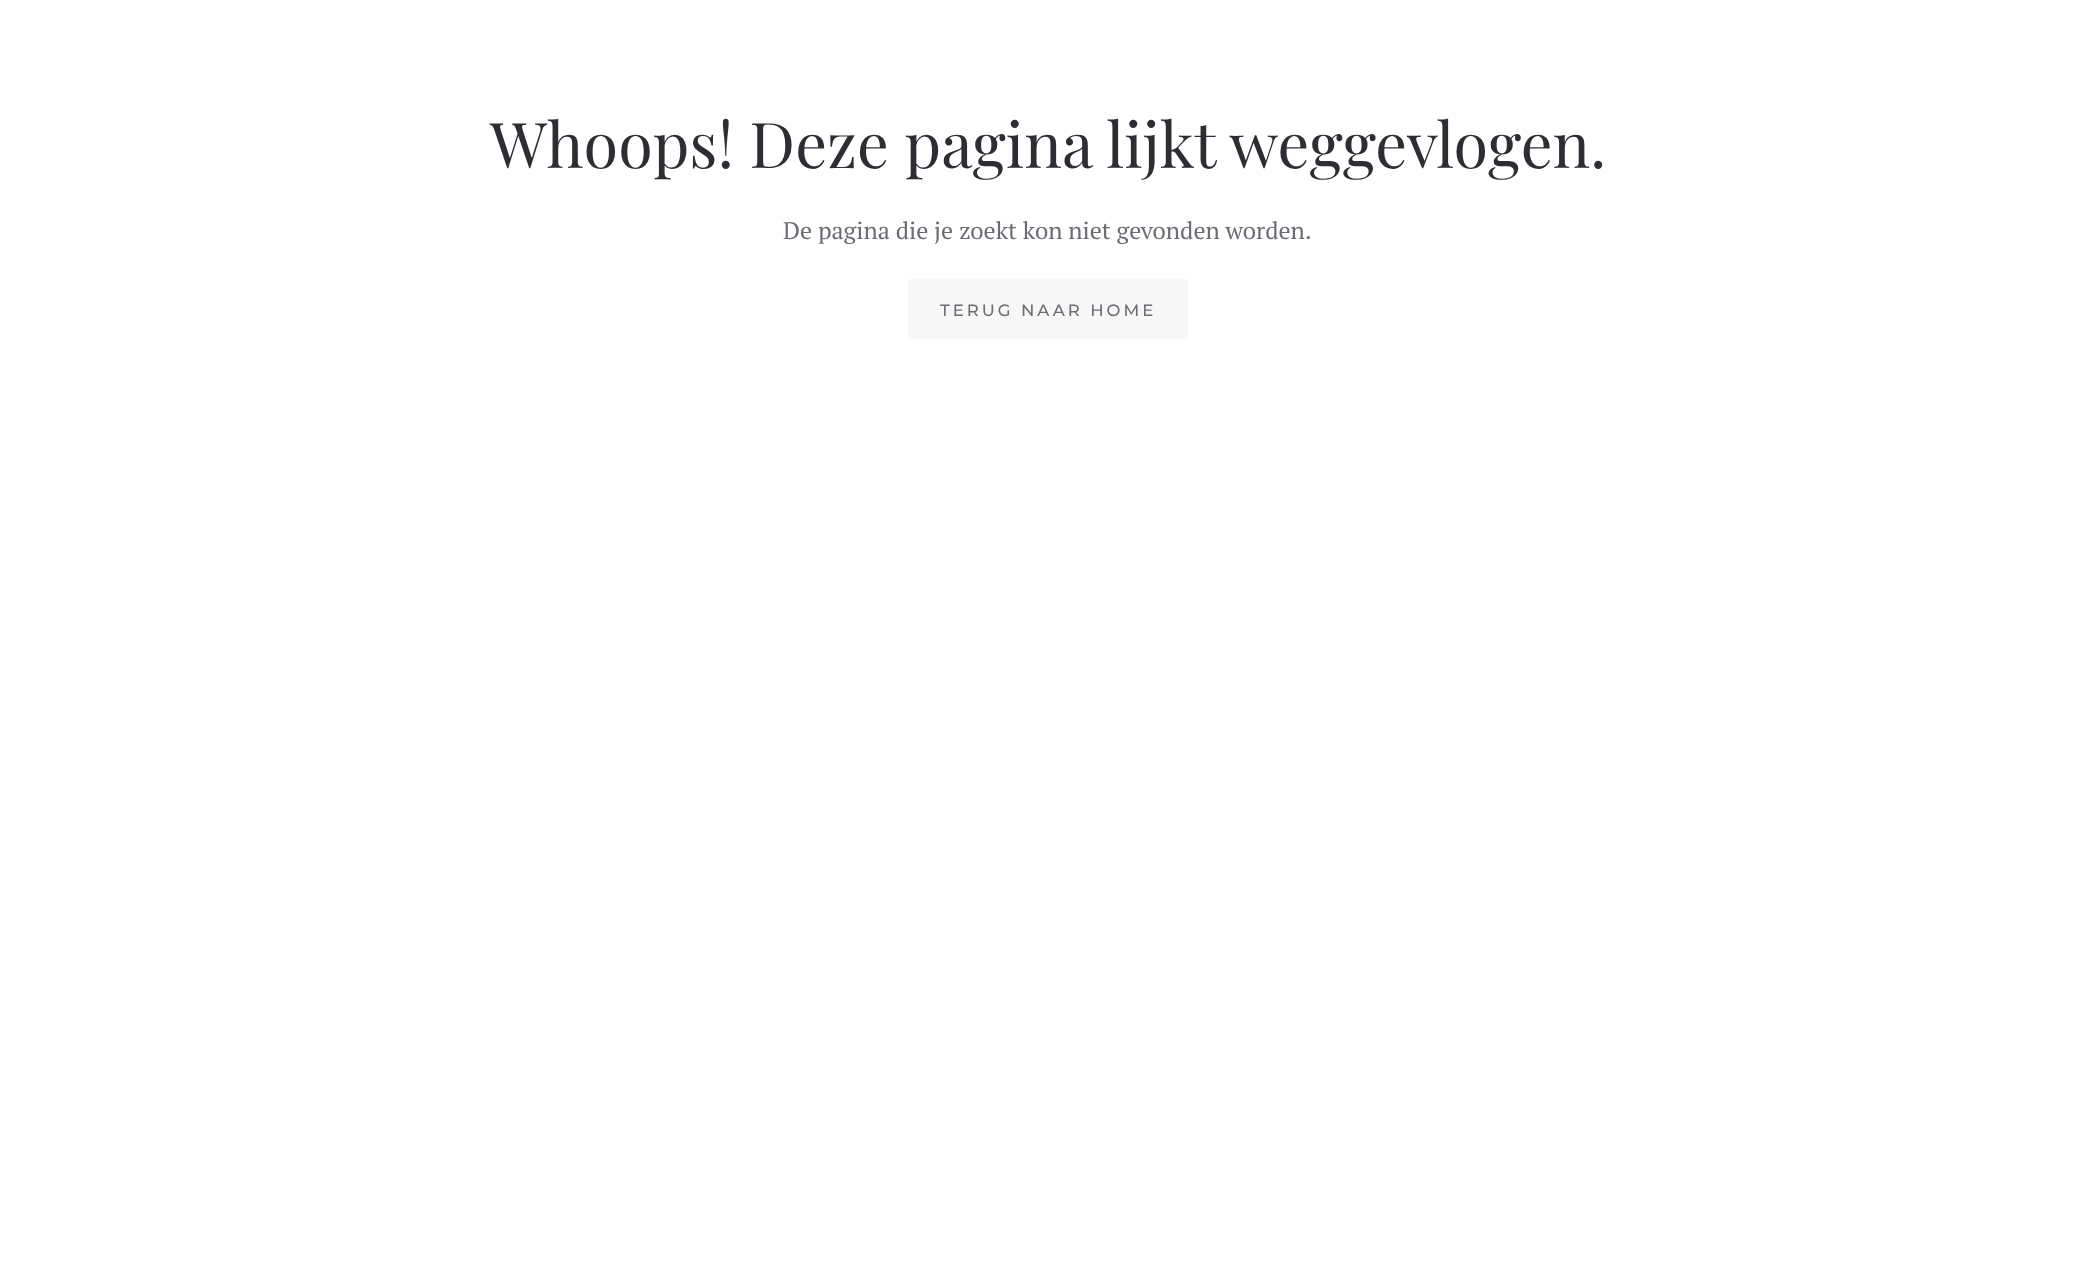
async function draw(canvas) {
  canvas.width = 2095
  canvas.height = 1261
  const ctx = canvas.getContext('2d')
  ctx.miterLimit = 4
  ctx.fontKerning = 'normal'

  ctx.fillStyle = '#fff'
  ctx.fillRect(0, 0, 2095, 1261)
  ctx.font = '63px Playfair Display'
  ctx.fillStyle = '#2d2e33'
  ctx.fillText('Whoops! Deze pagina lijkt weggevlogen.', 490, 168)
  ctx.font = '24px PT Serif'
  ctx.fillStyle = '#6c6d74'
  ctx.fillText('De pagina die je zoekt kon niet gevonden worden.', 783, 239)
  ctx.fillStyle = '#f7f7f7'
  ctx.fillRect(908, 279, 280, 60)
  ctx.letterSpacing = '3px'
  ctx.font = '100 16.5px Montserrat'
  ctx.fillStyle = '#6c6d74'
  ctx.fillText('TERUG NAAR HOME', 940, 316)
}

draw(document.querySelector('canvas'))
